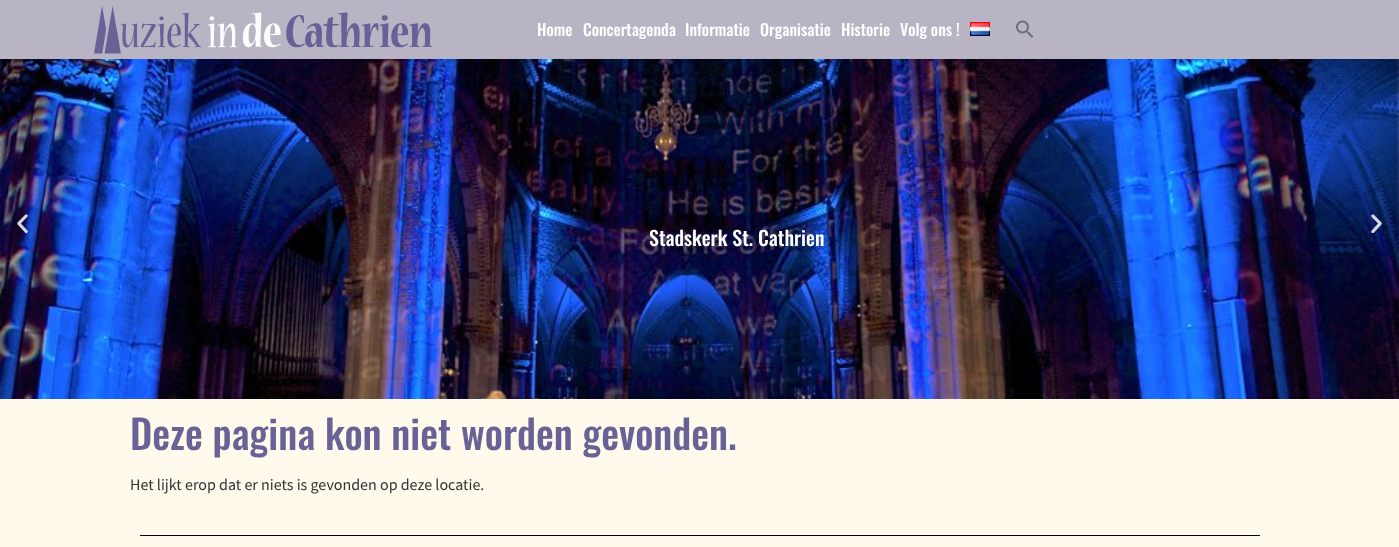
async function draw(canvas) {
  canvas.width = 1399
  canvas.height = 547
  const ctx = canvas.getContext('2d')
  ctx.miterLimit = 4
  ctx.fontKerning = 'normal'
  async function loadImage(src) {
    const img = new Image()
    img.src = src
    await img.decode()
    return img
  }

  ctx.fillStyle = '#fffaec'
  ctx.fillRect(0, 0, 1399, 547)
  ctx.fillStyle = '#b8b4c4'
  ctx.fillRect(0, 0, 1399, 59)
  ctx.drawImage(await loadImage('image0.png'), 94, 6, 338, 48)
  ctx.font = '500 16px Oswald'
  ctx.fillStyle = '#fff'
  ctx.fillText('Home', 537, 36)
  ctx.fillText('Concertagenda', 583, 36)
  ctx.fillText('Informatie', 685, 36)
  ctx.fillText('Organisatie', 760, 36)
  ctx.fillText('Historie', 841, 36)
  ctx.fillText('Volg ons !', 900, 36)
  ctx.drawImage(await loadImage('image1.png'), 970, 22, 20, 14)
  ctx.drawImage(await loadImage('image2.png'), 1016, 20, 18, 18)
  ctx.drawImage(await loadImage('image5.png'), 0, 59, 1399, 340)
  ctx.drawImage(await loadImage('image3.png'), 17, 214, 11, 20)
  ctx.drawImage(await loadImage('image4.png'), 1371, 214, 11, 20)
  ctx.font = '500 20px Oswald'
  ctx.fillText('Stadskerk St. Cathrien', 649, 246)
  ctx.font = '500 40px Oswald'
  ctx.fillStyle = '#696297'
  ctx.fillText('Deze pagina kon niet worden gevonden.', 130, 450)
  ctx.font = '16px Source Sans Pro'
  ctx.fillStyle = '#333'
  ctx.fillText('Het lijkt erop dat er niets is gevonden op deze locatie.', 130, 490)
  ctx.fillStyle = '#000'
  ctx.fillRect(140, 535, 1120, 1)
}

draw(document.querySelector('canvas'))
